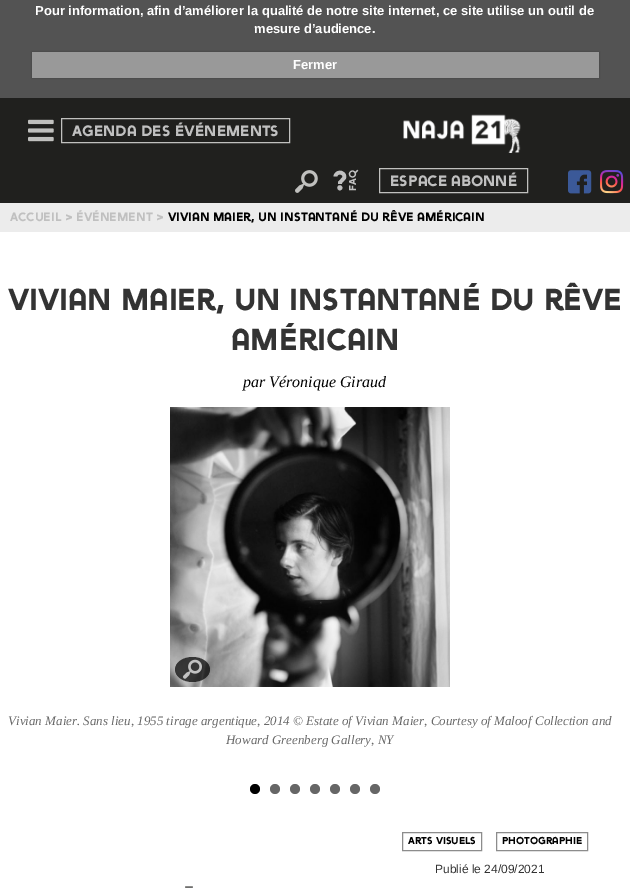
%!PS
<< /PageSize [630 888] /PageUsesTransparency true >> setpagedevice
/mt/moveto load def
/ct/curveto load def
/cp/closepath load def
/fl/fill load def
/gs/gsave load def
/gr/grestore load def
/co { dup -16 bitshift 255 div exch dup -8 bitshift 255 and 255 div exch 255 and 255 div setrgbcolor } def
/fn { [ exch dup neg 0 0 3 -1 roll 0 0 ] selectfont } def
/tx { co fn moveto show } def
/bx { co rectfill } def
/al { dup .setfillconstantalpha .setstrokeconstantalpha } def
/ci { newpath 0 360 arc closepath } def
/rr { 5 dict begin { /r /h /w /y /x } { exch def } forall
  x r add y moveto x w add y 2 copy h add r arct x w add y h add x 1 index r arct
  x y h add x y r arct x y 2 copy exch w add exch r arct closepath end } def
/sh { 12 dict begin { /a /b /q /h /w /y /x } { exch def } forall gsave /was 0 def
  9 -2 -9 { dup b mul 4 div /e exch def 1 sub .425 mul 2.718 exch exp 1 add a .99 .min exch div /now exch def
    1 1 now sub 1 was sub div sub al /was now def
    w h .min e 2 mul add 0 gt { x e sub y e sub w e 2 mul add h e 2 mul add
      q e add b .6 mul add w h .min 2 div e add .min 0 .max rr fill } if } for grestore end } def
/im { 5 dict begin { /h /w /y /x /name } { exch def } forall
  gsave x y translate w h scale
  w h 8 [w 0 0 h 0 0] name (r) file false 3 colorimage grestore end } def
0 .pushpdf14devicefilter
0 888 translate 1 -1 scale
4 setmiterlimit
0 0 630 888 16#FFFFFF bx
0 98 630 105 16#20201E bx
0 0 630 98 16#535353 bx
16#000000 co
32 52 567 26 0 1 .25 sh
32 52 567 26 16#999999 bx
(media/1.raw) 28 119 26 23 im
16#C0C0BE co
61.5 118.5 228 24 rectstroke
(media/2.raw) 403 114 118 39 im
(media/3.raw) 295 170 23 23 im
379.5 168.5 148 24 rectstroke
(media/4.raw) 568 170 24 24 im
(media/5.raw) 600 170 24 24 im
0 203 630 29 16#ECECEC bx
(media/6.raw) 170 407 280 280 im
0.7 al
16#000000 co
192.5 657 mt 202 657 210 662.5 210 669.5 ct 210 676.5 202 682 192.5 682 ct 183 682 175 676.5 175 669.5 ct 175 662.5 183 657 192.5 657 ct cp fl
1 al
(media/7.raw) 183 659 19 20 im
255 789 5 ci fl
16#666666 co
275 789 5 ci fl
295 789 5 ci fl
315 789 5 ci fl
335 789 5 ci fl
355 789 5 ci fl
375 789 5 ci fl
16#8C8C8C co
402.5 832.5 79 18 rectstroke
496.5 832.5 91 18 rectstroke
(media/8.raw) 185 886 8 2 im
(Pour information, afin d’améliorer la qualité de notre site internet, ce site utilise un outil de) 35 15 /LiberationSans-Bold 13 16#FFFFFF tx
(mesure d’audience.) 254 33 /LiberationSans-Bold 13 16#FFFFFF tx
(Fermer) 293 69 /LiberationSans-Bold 13 16#FFFFFF tx
(Agenda des événements) 72 136 /Arya-Regular 15 16#C0C0C0 tx
(?) 332 190 /Arya-Regular 27 16#C0C0C0 tx
/Arya-Regular 10 fn
gs 356 191 translate -90 rotate 0 0 mt (FAQ) show gr
(espace abonné) 390 186 /Arya-Regular 15 16#C0C0C0 tx
(ACCUEIL > Événement >) 10 221 /Arya-Regular 12 16#C0C0C0 tx
(Vivian Maier, un instantané du rêve américain) 168 221 /Arya-Regular 12 16#000000 tx
(Vivian Maier, un instantané du rêve) 8 310 /Arya-Regular 30 16#333333 tx
(américain) 231 350 /Arya-Regular 30 16#333333 tx
(par Véronique Giraud) 243 387 /LiberationSerif-Italic 16 16#000000 tx
(Vivian Maier. Sans lieu, 1955 tirage argentique, 2014 © Estate of Vivian Maier, Courtesy of Maloof Collection and) 8 725 /LiberationSerif-Italic 13 16#696969 tx
(Howard Greenberg Gallery, NY) 226 744 /LiberationSerif-Italic 13 16#696969 tx
(Arts visuels) 408 844 /Arya-Regular 10 16#000000 tx
(Photographie) 502 844 /Arya-Regular 10 16#000000 tx
(Publié le 24/09/2021) 435 873 /LiberationSans-Regular 12 16#333333 tx
.poppdf14devicefilter showpage
